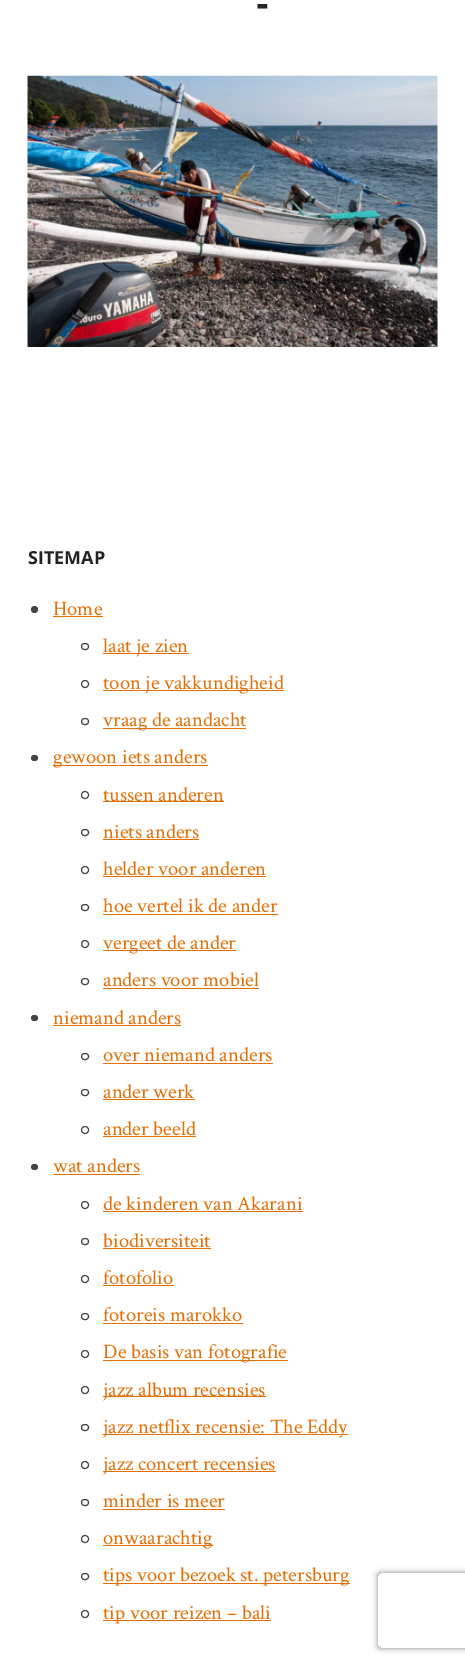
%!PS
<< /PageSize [465 1664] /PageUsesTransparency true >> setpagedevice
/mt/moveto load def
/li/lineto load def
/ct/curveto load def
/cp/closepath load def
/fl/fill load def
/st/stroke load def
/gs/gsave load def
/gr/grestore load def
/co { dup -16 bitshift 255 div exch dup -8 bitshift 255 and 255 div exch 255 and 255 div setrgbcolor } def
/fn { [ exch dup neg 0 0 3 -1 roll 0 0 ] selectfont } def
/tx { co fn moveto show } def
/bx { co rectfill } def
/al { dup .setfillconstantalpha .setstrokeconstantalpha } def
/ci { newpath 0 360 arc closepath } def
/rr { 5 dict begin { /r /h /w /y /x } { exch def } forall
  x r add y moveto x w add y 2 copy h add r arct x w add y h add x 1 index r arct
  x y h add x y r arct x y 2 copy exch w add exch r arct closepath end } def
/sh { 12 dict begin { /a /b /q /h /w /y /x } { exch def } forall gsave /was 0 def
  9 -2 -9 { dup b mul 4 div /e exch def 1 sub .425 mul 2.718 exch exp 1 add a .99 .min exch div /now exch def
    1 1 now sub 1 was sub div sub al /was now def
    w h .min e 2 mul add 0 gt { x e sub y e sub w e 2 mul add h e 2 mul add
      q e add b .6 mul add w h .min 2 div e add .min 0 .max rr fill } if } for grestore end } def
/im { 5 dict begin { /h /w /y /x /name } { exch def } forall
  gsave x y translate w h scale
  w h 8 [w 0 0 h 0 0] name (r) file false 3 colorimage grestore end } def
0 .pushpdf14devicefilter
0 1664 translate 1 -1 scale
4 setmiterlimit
0 0 465 1664 16#FFFFFF bx
(media/1.raw) 27 75 411 272 im
16#444444 co
34.5 609.5 3.5 ci fl
53 616 50 1 16#E36E04 bx
16#444444 co
81.5 643.5 7 6 3 rr st
103 653 86 1 16#E36E04 bx
16#444444 co
85 684 3.5 ci st
103 690 181 1 16#E36E04 bx
16#444444 co
81.5 718.5 7 6 3 rr st
103 728 143 1 16#E36E04 bx
16#444444 co
31 755 7 6 3 rr fl
53 765 155 1 16#E36E04 bx
16#444444 co
85 795 3.5 ci st
103 801 121 1 16#E36E04 bx
16#444444 co
81.5 829.5 7 6 3 rr st
103 839 96 1 16#E36E04 bx
16#444444 co
85 870 3.5 ci st
103 876 163 1 16#E36E04 bx
16#444444 co
81.5 904.5 7 6 3 rr st
103 914 175 1 16#E36E04 bx
16#444444 co
85 944 3.5 ci st
103 950 133 1 16#E36E04 bx
16#444444 co
81.5 978.5 7 6 3 rr st
103 988 156 1 16#E36E04 bx
16#444444 co
31 1015 7 6 3 rr fl
53 1025 128 1 16#E36E04 bx
16#444444 co
81.5 1053.5 7 6 3 rr st
103 1063 170 1 16#E36E04 bx
16#444444 co
81.5 1089.5 7 6 3 rr st
103 1099 92 1 16#E36E04 bx
16#444444 co
85 1130 3.5 ci st
103 1136 93 1 16#E36E04 bx
16#444444 co
31 1164 7 6 3 rr fl
53 1174 87 1 16#E36E04 bx
16#444444 co
85 1205 3.5 ci st
103 1211 200 1 16#E36E04 bx
16#444444 co
81.5 1238.5 7 6 3 rr st
103 1248 108 1 16#E36E04 bx
16#444444 co
85 1279 3.5 ci st
103 1285 71 1 16#E36E04 bx
16#444444 co
81.5 1313.5 7 6 3 rr st
103 1323 140 1 16#E36E04 bx
16#444444 co
85 1354 3.5 ci st
103 1360 185 1 16#E36E04 bx
16#444444 co
85 1390 3.5 ci st
103 1396 163 1 16#E36E04 bx
16#444444 co
81.5 1424.5 7 6 3 rr st
103 1434 245 1 16#E36E04 bx
16#444444 co
85 1465 3.5 ci st
103 1471 173 1 16#E36E04 bx
16#444444 co
81.5 1499.5 7 6 3 rr st
103 1509 122 1 16#E36E04 bx
16#444444 co
85 1539 3.5 ci st
103 1545 110 1 16#E36E04 bx
16#444444 co
81.5 1573.5 7 6 3 rr st
103 1583 247 1 16#E36E04 bx
16#444444 co
85 1614 3.5 ci st
103 1620 168 1 16#E36E04 bx
gs
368 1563 mt 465 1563 li 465 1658 li 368 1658 li cp 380.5 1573 mt 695.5 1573 li 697 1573 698 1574 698 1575.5 ct 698 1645.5 li 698 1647 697 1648 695.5 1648 ct 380.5 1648 li 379 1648 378 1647 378 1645.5 ct 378 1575.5 li 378 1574 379 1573 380.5 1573 ct cp eoclip newpath
16#808080 co
378 1573 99 75 2.5 3 1 sh
gr
(-) 256 16 /LiberationSans-Bold 38 16#222222 tx
(SITEMAP) 28 564 /OpenSans-Bold 18 16#222222 tx
(Home) 53 615 /CrimsonText-Regular 20.6 16#E36E04 tx
(laat je zien) 103 652 /CrimsonText-Regular 20.6 16#E36E04 tx
(toon je vakkundigheid) 103 689 /CrimsonText-Regular 20.6 16#E36E04 tx
(vraag de aandacht) 103 726 /CrimsonText-Regular 20.6 16#E36E04 tx
(gewoon iets anders) 53 763 /CrimsonText-Regular 20.6 16#E36E04 tx
(tussen anderen) 103 801 /CrimsonText-Regular 20.6 16#E36E04 tx
(niets anders) 103 838 /CrimsonText-Regular 20.6 16#E36E04 tx
(helder voor anderen) 103 875 /CrimsonText-Regular 20.6 16#E36E04 tx
(hoe vertel ik de ander) 103 912 /CrimsonText-Regular 20.6 16#E36E04 tx
(vergeet de ander) 103 949 /CrimsonText-Regular 20.6 16#E36E04 tx
(anders voor mobiel) 103 986 /CrimsonText-Regular 20.6 16#E36E04 tx
(niemand anders) 53 1024 /CrimsonText-Regular 20.6 16#E36E04 tx
(over niemand anders) 103 1061 /CrimsonText-Regular 20.6 16#E36E04 tx
(ander werk) 103 1098 /CrimsonText-Regular 20.6 16#E36E04 tx
(ander beeld) 103 1135 /CrimsonText-Regular 20.6 16#E36E04 tx
(wat anders) 53 1172 /CrimsonText-Regular 20.6 16#E36E04 tx
(de kinderen van Akarani) 103 1210 /CrimsonText-Regular 20.6 16#E36E04 tx
(biodiversiteit) 103 1247 /CrimsonText-Regular 20.6 16#E36E04 tx
(fotofolio) 103 1284 /CrimsonText-Regular 20.6 16#E36E04 tx
(fotoreis marokko) 103 1321 /CrimsonText-Regular 20.6 16#E36E04 tx
(De basis van fotografie) 103 1358 /CrimsonText-Regular 20.6 16#E36E04 tx
(jazz album recensies) 103 1396 /CrimsonText-Regular 20.6 16#E36E04 tx
(jazz netflix recensie: The Eddy) 103 1433 /CrimsonText-Regular 20.6 16#E36E04 tx
(jazz concert recensies) 103 1470 /CrimsonText-Regular 20.6 16#E36E04 tx
(minder is meer) 103 1507 /CrimsonText-Regular 20.6 16#E36E04 tx
(onwaarachtig) 103 1544 /CrimsonText-Regular 20.6 16#E36E04 tx
(tips voor bezoek st. petersburg) 103 1581 /CrimsonText-Regular 20.6 16#E36E04 tx
(tip voor reizen – bali) 103 1619 /CrimsonText-Regular 20.6 16#E36E04 tx
.poppdf14devicefilter showpage
